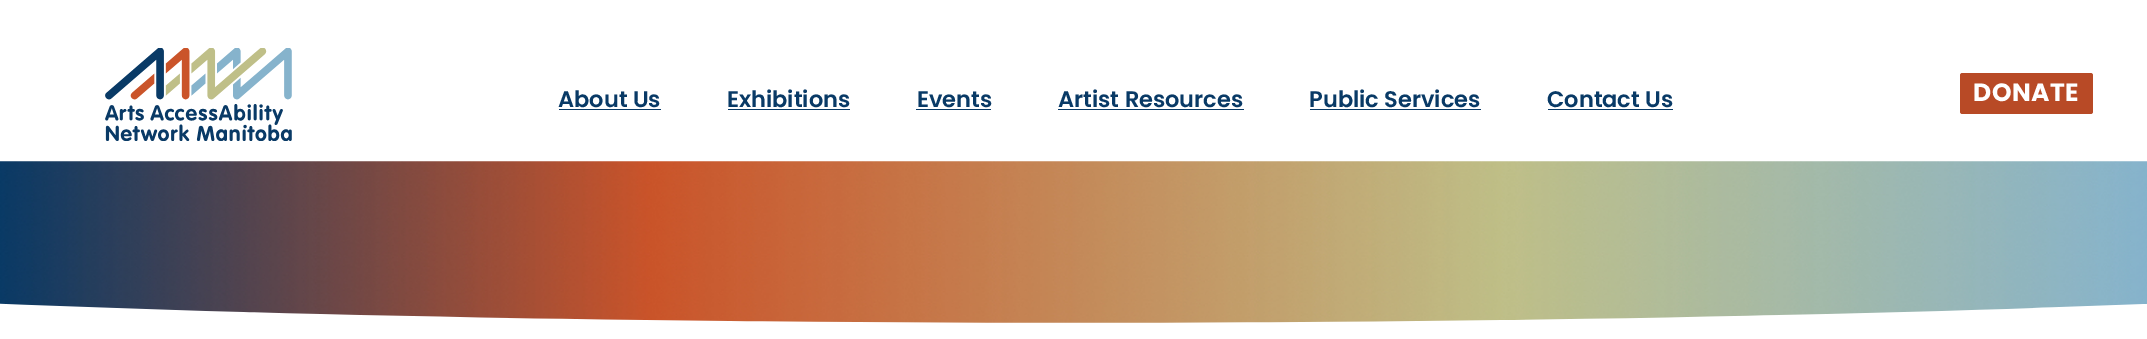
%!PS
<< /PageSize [2147 339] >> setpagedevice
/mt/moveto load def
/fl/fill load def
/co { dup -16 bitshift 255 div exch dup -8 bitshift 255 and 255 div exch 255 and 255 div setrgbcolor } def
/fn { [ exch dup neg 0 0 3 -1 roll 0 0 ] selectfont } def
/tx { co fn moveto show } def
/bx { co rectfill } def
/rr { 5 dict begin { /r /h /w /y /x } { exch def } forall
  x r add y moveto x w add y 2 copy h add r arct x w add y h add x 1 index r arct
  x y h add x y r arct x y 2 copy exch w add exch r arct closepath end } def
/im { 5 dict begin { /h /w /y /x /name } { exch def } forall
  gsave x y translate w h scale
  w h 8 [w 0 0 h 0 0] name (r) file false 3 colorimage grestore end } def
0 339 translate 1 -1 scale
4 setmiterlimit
0 0 2147 339 16#FFFFFF bx
(media/1.raw) 105 48 187 93 im
559 109 102 1 16#093A66 bx
728 109 122 1 16#093A66 bx
916 109 75 1 16#093A66 bx
1058 109 186 1 16#093A66 bx
1310 109 171 1 16#093A66 bx
1548 109 125 1 16#093A66 bx
16#B84A26 co
1960 73 133 41 2.5 rr fl
(media/2.raw) 0 161 2147 162 im
(About Us) 558 107 /Poppins-SemiBold 22.5 16#093A66 tx
(Exhibitions) 727 107 /Poppins-SemiBold 22.5 16#093A66 tx
(Events) 917 107 /Poppins-SemiBold 22.5 16#093A66 tx
(Artist Resources) 1058 107 /Poppins-SemiBold 22.5 16#093A66 tx
(Public Services) 1309 107 /Poppins-SemiBold 22.5 16#093A66 tx
(Contact Us) 1547 107 /Poppins-SemiBold 22.5 16#093A66 tx
/Poppins-Bold 25 fn
16#FFFFFF co
1973 101 mt .5 0 (DONATE) ashow
showpage
